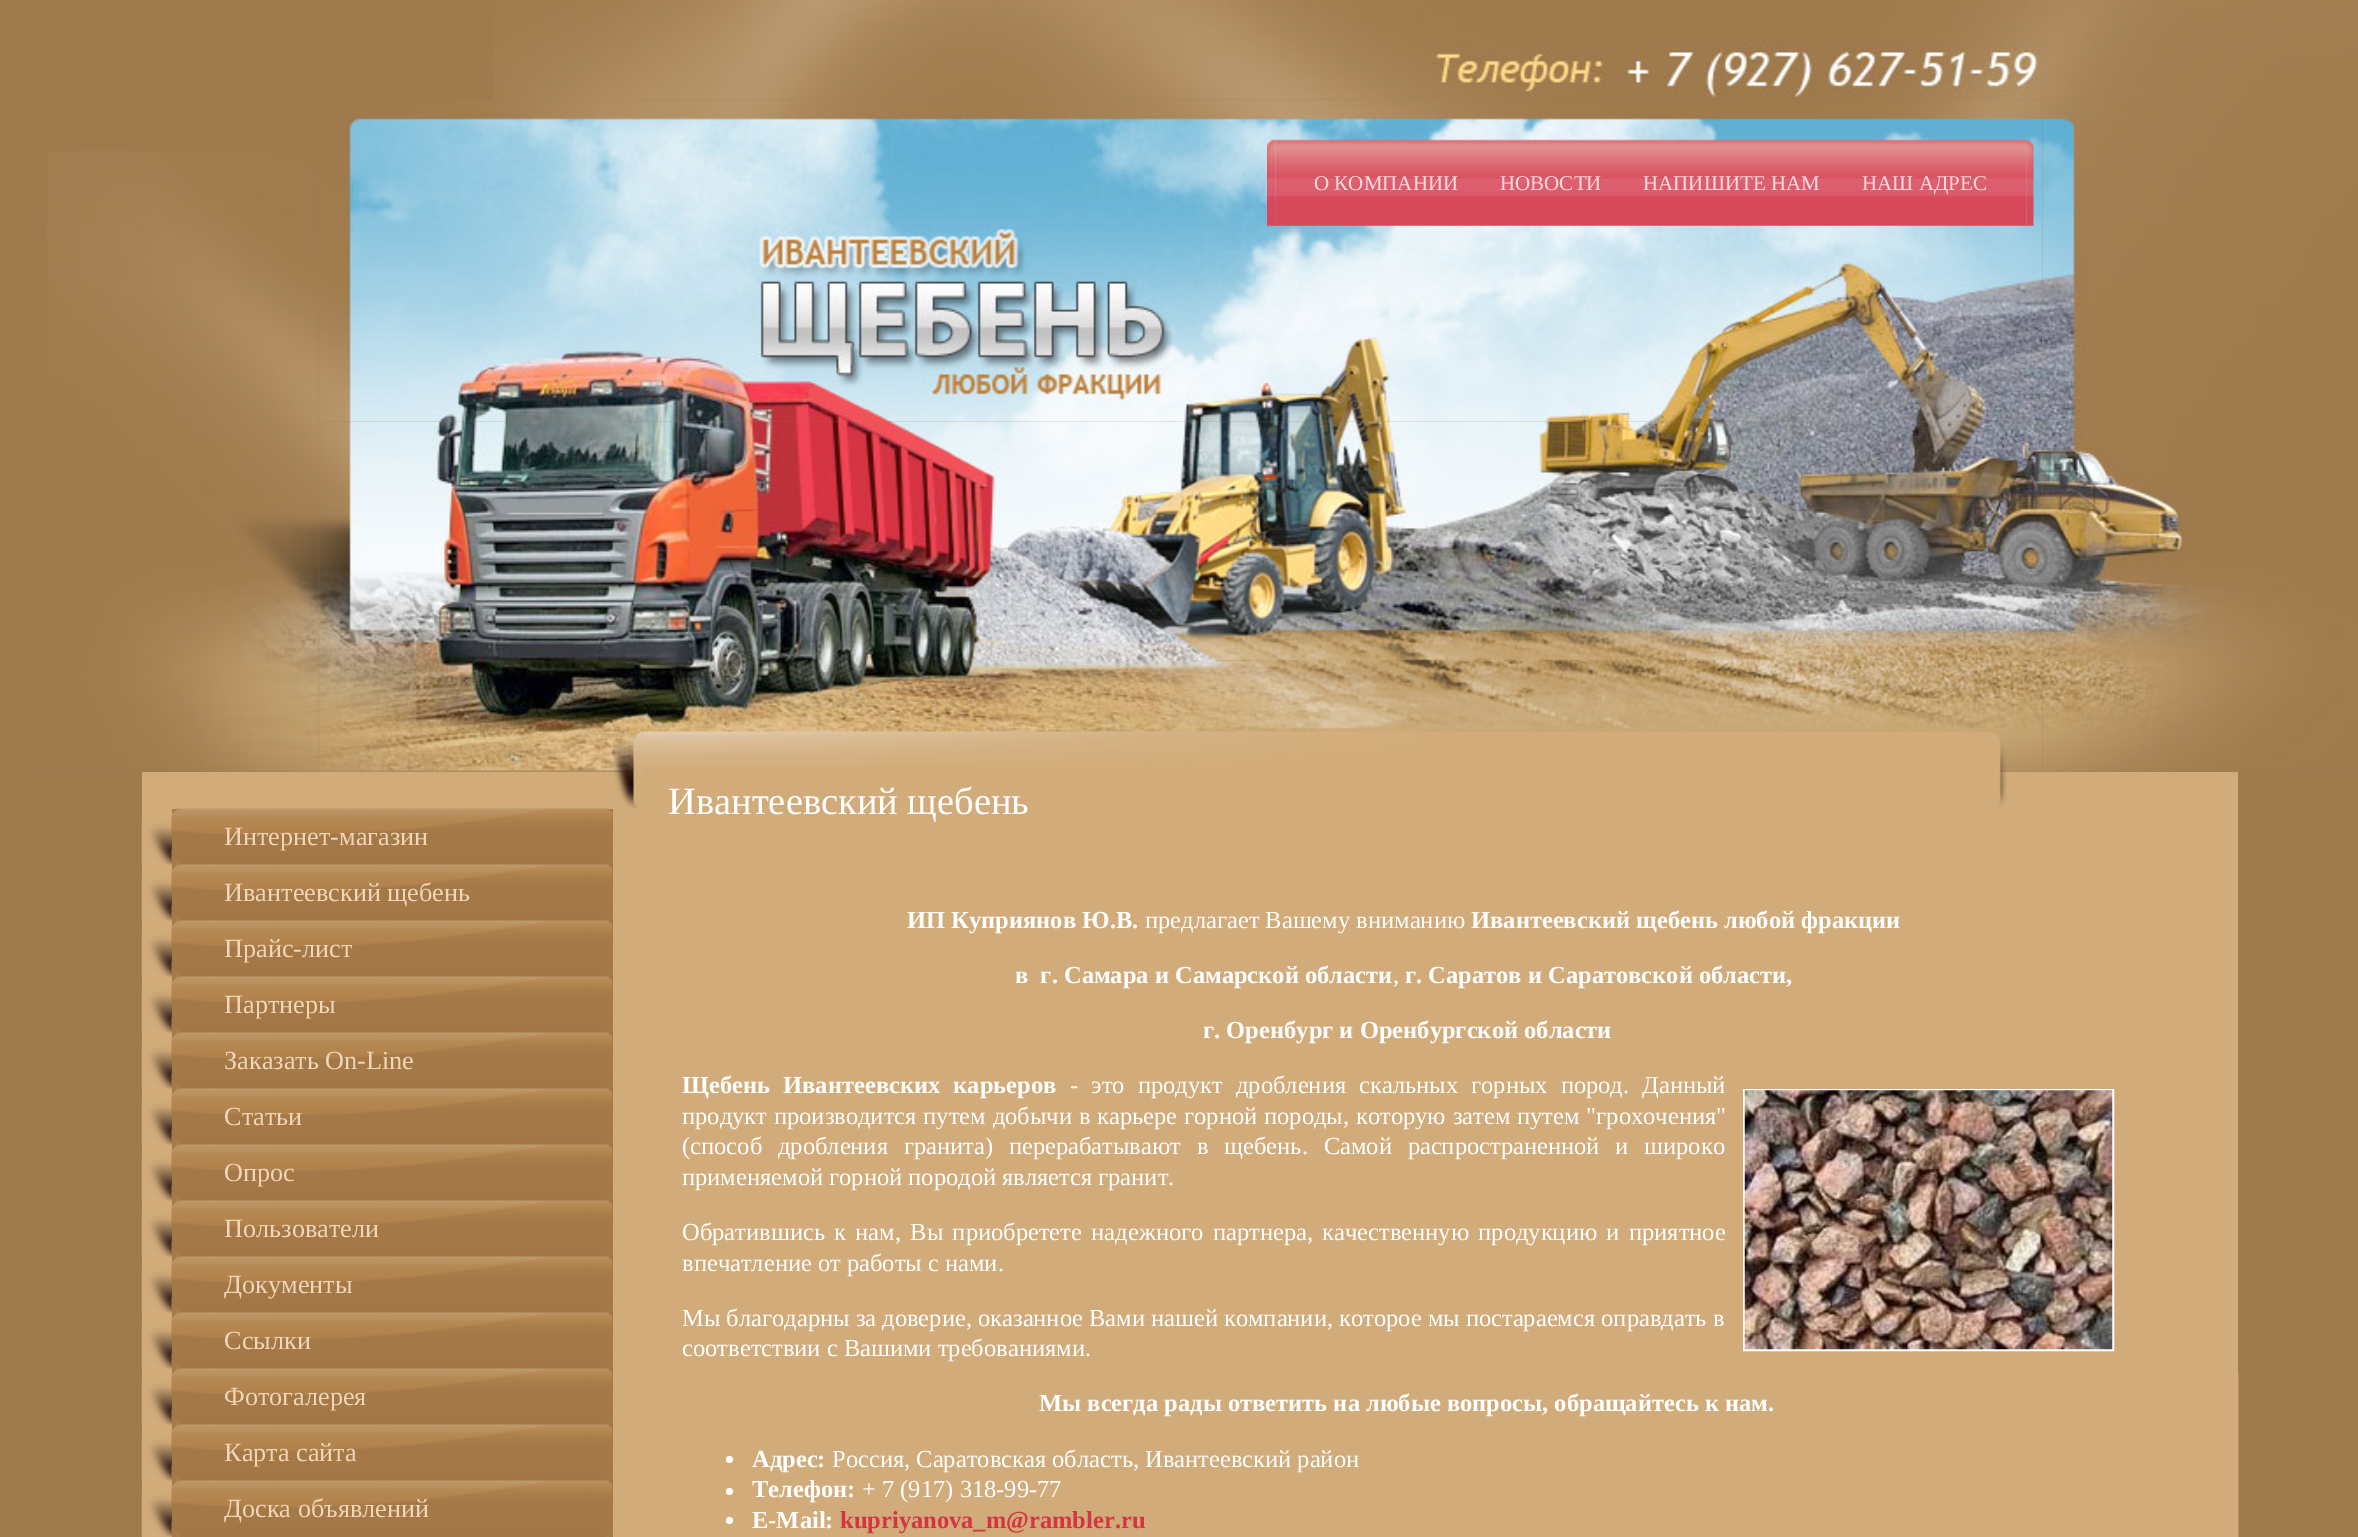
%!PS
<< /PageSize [2358 1537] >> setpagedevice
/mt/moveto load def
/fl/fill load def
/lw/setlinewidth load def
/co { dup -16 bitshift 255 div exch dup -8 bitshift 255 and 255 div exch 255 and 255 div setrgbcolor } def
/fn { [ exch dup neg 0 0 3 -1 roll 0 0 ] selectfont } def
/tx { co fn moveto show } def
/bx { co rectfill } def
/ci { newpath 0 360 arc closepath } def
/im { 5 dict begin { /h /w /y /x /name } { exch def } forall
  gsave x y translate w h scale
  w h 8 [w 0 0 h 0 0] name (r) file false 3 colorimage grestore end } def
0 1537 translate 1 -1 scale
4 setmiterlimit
0 0 2358 1537 16#9F7A4D bx
(media/1.raw) 47 151 272 621 im
(media/2.raw) 493 0 1550 100 im
(media/3.raw) 318 100 1725 322 im
(media/5.raw) 1275 139 752 87 im
(media/4.raw) 1267 139 9 87 im
(media/6.raw) 2026 139 8 87 im
(media/8.raw) 2042 0 316 772 im
(media/7.raw) 318 421 1725 351 im
142 772 2096 765 16#D1AC7A bx
2238 1372 1 165 16#B28C5D bx
(media/9.raw) 141 819 31 46 im
172 809 441 728 16#A47947 bx
(media/10.raw) 171 848 438 17 im
(media/11.raw) 171 808 442 31 im
(media/9.raw) 141 875 31 46 im
(media/10.raw) 171 904 438 17 im
(media/12.raw) 171 864 442 31 im
(media/9.raw) 141 931 31 46 im
(media/10.raw) 171 960 438 17 im
(media/12.raw) 171 920 442 31 im
(media/9.raw) 141 987 31 46 im
(media/10.raw) 171 1016 438 17 im
(media/12.raw) 171 976 442 31 im
(media/9.raw) 141 1043 31 46 im
(media/10.raw) 171 1072 438 17 im
(media/12.raw) 171 1032 442 31 im
(media/9.raw) 141 1099 31 46 im
(media/10.raw) 171 1128 438 17 im
(media/12.raw) 171 1088 442 31 im
(media/9.raw) 141 1155 31 46 im
(media/10.raw) 171 1184 438 17 im
(media/12.raw) 171 1144 442 31 im
(media/9.raw) 141 1211 31 46 im
(media/10.raw) 171 1240 438 17 im
(media/12.raw) 171 1200 442 31 im
(media/9.raw) 141 1267 31 46 im
(media/10.raw) 171 1296 438 17 im
(media/12.raw) 171 1256 442 31 im
(media/9.raw) 141 1323 31 46 im
(media/10.raw) 171 1352 438 17 im
(media/12.raw) 171 1312 442 31 im
(media/9.raw) 141 1379 31 46 im
(media/10.raw) 171 1408 438 17 im
(media/12.raw) 171 1368 442 31 im
(media/9.raw) 141 1435 31 46 im
(media/10.raw) 171 1464 438 17 im
(media/12.raw) 171 1424 442 31 im
(media/9.raw) 141 1491 31 46 im
(media/10.raw) 171 1520 438 17 im
(media/12.raw) 171 1480 442 31 im
(media/13.raw) 612 731 30 78 im
642 732 1343 40 16#D1AC7A bx
(media/14.raw) 642 731 779 36 im
(media/15.raw) 1985 731 22 77 im
16#FFFFFF co
2 lw
1744 1090 369 260 rectstroke
(media/16.raw) 1744 1090 369 260 im
729.5 1459.5 3.5 ci fl
729.5 1491.5 3.5 ci fl
729.5 1520.5 3.5 ci fl
(О КОМПАНИИ) 1314 190 /LiberationSerif-Regular 21 16#FFDBE0 tx
(НОВОСТИ) 1500 190 /LiberationSerif-Regular 21 16#FFDBE0 tx
(НАПИШИТЕ НАМ) 1643 190 /LiberationSerif-Regular 21 16#FFDBE0 tx
(НАШ АДРЕС) 1862 190 /LiberationSerif-Regular 21 16#FFDBE0 tx
(Интернет-магазин) 224 845 /LiberationSerif-Regular 26.25 16#F1D6B7 tx
(Ивантеевский щебень) 224 901 /LiberationSerif-Regular 26.25 16#F1D6B7 tx
(Прайс-лист) 224 957 /LiberationSerif-Regular 26.25 16#F1D6B7 tx
(Партнеры) 224 1013 /LiberationSerif-Regular 26.25 16#F1D6B7 tx
(Заказать On-Line) 224 1069 /LiberationSerif-Regular 26.25 16#F1D6B7 tx
(Статьи) 224 1125 /LiberationSerif-Regular 26.25 16#F1D6B7 tx
(Опрос) 224 1181 /LiberationSerif-Regular 26.25 16#F1D6B7 tx
(Пользователи) 224 1237 /LiberationSerif-Regular 26.25 16#F1D6B7 tx
(Документы) 224 1293 /LiberationSerif-Regular 26.25 16#F1D6B7 tx
(Ссылки) 224 1349 /LiberationSerif-Regular 26.25 16#F1D6B7 tx
(Фотогалерея) 224 1405 /LiberationSerif-Regular 26.25 16#F1D6B7 tx
(Карта сайта) 224 1461 /LiberationSerif-Regular 26.25 16#F1D6B7 tx
(Доска объявлений) 224 1517 /LiberationSerif-Regular 26.25 16#F1D6B7 tx
(Ивантеевский щебень) 668 814 /LiberationSerif-Regular 38.5 16#FFFFFF tx
(ИП Куприянов Ю.В.) 907 928 /LiberationSerif-Bold 24.5 16#FFFFFF tx
(предлагает Вашему вниманию) 1145 928 /LiberationSerif-Regular 24.5 16#FFFFFF tx
(Ивантеевский щебень любой фракции) 1471 928 /LiberationSerif-Bold 24.5 16#FFFFFF tx
(в  г. Самара и Самарской области) 1015 983 /LiberationSerif-Bold 24.5 16#FFFFFF tx
(,) 1393 983 /LiberationSerif-Regular 24.5 16#FFFFFF tx
(г. Саратов и Саратовской области,) 1405 983 /LiberationSerif-Bold 24.5 16#FFFFFF tx
(г. Оренбург и Оренбургской области) 1203 1038 /LiberationSerif-Bold 24.5 16#FFFFFF tx
682 1093 mt 7 0 32 (Щебень Ивантеевских карьеров) widthshow
/LiberationSerif-Regular 24.5 fn
1070 1093 mt 7 0 32 (- это продукт дробления скальных горных пород. Данный) widthshow
682 1124 mt .75 0 32 (продукт производится путем добычи в карьере горной породы, которую затем путем "грохочения") widthshow
682 1154 mt 9.75 0 32 (\(способ дробления гранита\) перерабатывают в щебень. Самой распространенной и широко) widthshow
(применяемой горной породой является гранит.) 682 1185 /LiberationSerif-Regular 24.5 16#FFFFFF tx
682 1240 mt 3.25 0 32 (Обратившись к нам, Вы приобретете надежного партнера, качественную продукцию и приятное) widthshow
(впечатление от работы с нами.) 682 1271 /LiberationSerif-Regular 24.5 16#FFFFFF tx
(Мы благодарны за доверие, оказанное Вами нашей компании, которое мы постараемся оправдать в) 682 1326 /LiberationSerif-Regular 24.5 16#FFFFFF tx
(соответствии с Вашими требованиями.) 682 1356 /LiberationSerif-Regular 24.5 16#FFFFFF tx
(Мы всегда рады ответить на любые вопросы, обращайтесь к нам.) 1039 1411 /LiberationSerif-Bold 24.5 16#FFFFFF tx
(Адрес:) 752 1467 /LiberationSerif-Bold 24.5 16#FFFFFF tx
(Россия, Саратовская область, Ивантеевский район) 832 1467 /LiberationSerif-Regular 24.5 16#FFFFFF tx
(Телефон:) 752 1497 /LiberationSerif-Bold 24.5 16#FFFFFF tx
(+ 7 \(917\) 318-99-77) 862 1497 /LiberationSerif-Regular 24.5 16#FFFFFF tx
(E-Mail:) 752 1528 /LiberationSerif-Bold 24.5 16#FFFFFF tx
(kupriyanova_m@rambler.ru) 840 1528 /LiberationSerif-Bold 24.5 16#D53443 tx
showpage
